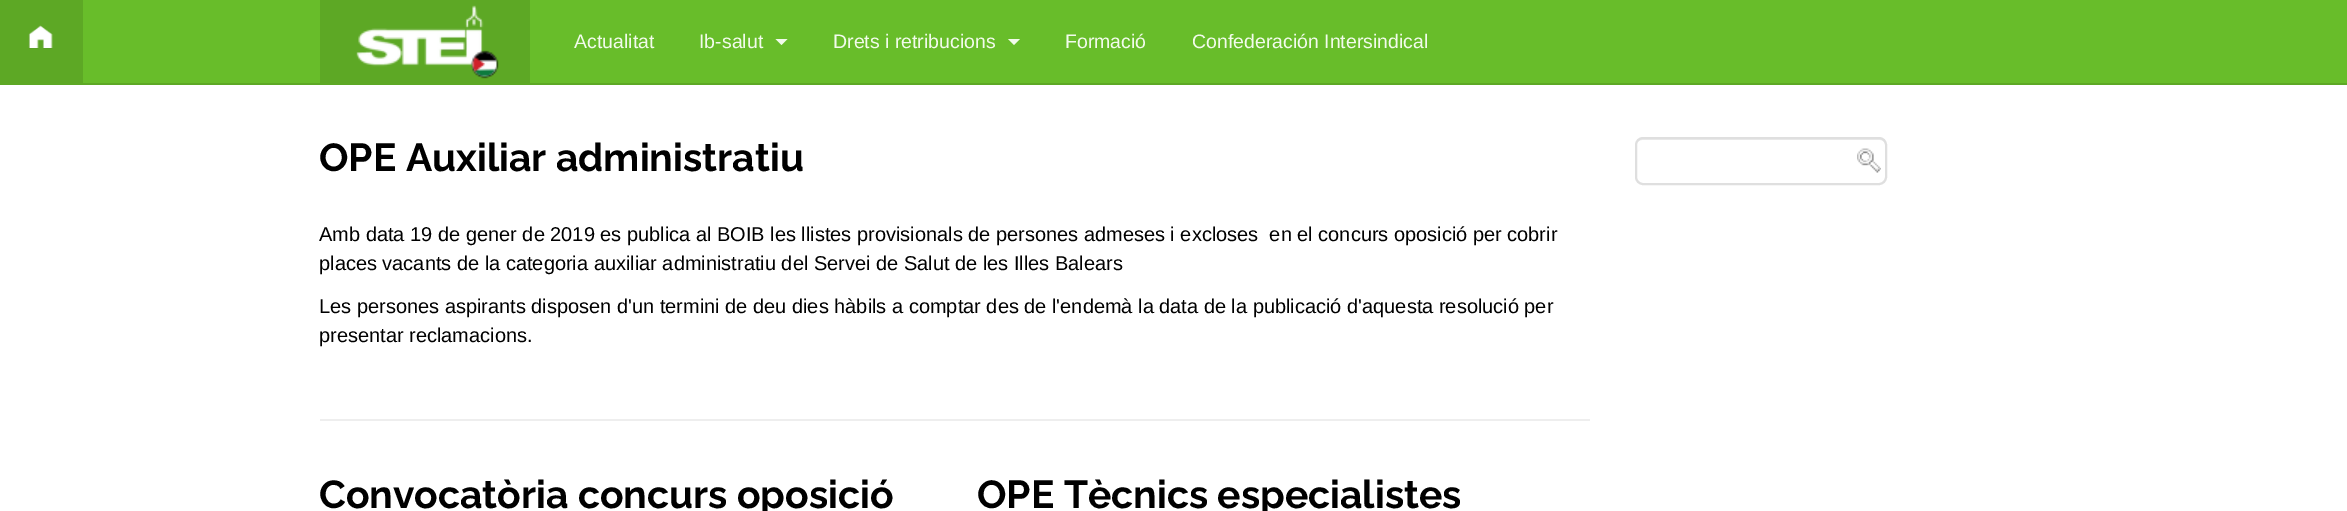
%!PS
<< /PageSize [2347 511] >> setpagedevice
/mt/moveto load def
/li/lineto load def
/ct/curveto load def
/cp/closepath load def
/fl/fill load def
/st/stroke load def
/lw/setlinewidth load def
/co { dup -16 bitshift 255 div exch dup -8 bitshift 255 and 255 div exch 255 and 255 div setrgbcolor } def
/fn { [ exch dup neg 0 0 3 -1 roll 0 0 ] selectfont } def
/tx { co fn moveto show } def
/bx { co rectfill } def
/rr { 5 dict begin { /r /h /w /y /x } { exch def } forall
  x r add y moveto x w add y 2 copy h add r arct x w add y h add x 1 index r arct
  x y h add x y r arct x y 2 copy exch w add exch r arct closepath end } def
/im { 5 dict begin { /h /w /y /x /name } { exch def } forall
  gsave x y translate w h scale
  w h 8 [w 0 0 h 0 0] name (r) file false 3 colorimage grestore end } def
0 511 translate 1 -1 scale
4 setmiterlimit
0 0 2347 511 16#FFFFFF bx
83 0 2264 83 16#68BD2A bx
0 83 2347 2 16#5DA825 bx
0 0 83 83 16#5DA825 bx
(media/1.raw) 28 25 25 24 im
320 0 210 83 16#5DA825 bx
(media/2.raw) 356 5 143 74 im
16#F2FBEB co
775.5 39 mt 787.5 39 li 781.5 45 li cp fl
1008 39 mt 1020 39 li 1014 45 li cp fl
320 419 1270 2 16#EEEEEE bx
(media/3.raw) 1857 148 24 25 im
16#ECECEC co
1642 140 mt 1880 140 li 1883 140 1886 142 1886 146 ct 1886 144 li 1886 141 1883 138 1880 138 ct 1643 138 li 1640 138 1638 140 1637 142 ct 1638 141 1640 140 1642 140 ct cp fl
16#DFDFDF co
2 lw
1636 138 250 46 7 rr st
(Actualitat) 574 48 /LiberationSans-Regular 19.5 16#F2FBEB tx
(Ib-salut) 699 48 /LiberationSans-Regular 19.5 16#F2FBEB tx
(Drets i retribucions) 833 48 /LiberationSans-Regular 19.5 16#F2FBEB tx
(Formació) 1065 48 /LiberationSans-Regular 19.5 16#F2FBEB tx
(Confederación Intersindical) 1192 48 /LiberationSans-Regular 19.5 16#F2FBEB tx
(OPE Auxiliar administratiu) 319 171 /Raleway-Bold 39 16#000000 tx
(Amb data 19 de gener de 2019 es publica al BOIB les llistes provisionals de persones admeses i excloses  en el concurs oposició per cobrir) 319 241 /LiberationSans-Regular 20 16#000000 tx
(places vacants de la categoria auxiliar administratiu del Servei de Salut de les Illes Balears) 319 270 /LiberationSans-Regular 20 16#000000 tx
(Les persones aspirants disposen d'un termini de deu dies hàbils a comptar des de l'endemà la data de la publicació d'aquesta resolució per) 319 313 /LiberationSans-Regular 20 16#000000 tx
(presentar reclamacions.) 319 342 /LiberationSans-Regular 20 16#000000 tx
(Convocatòria concurs oposició) 319 508 /Raleway-Bold 39 16#000000 tx
(OPE Tècnics especialistes) 977 508 /Raleway-Bold 39 16#000000 tx
showpage
